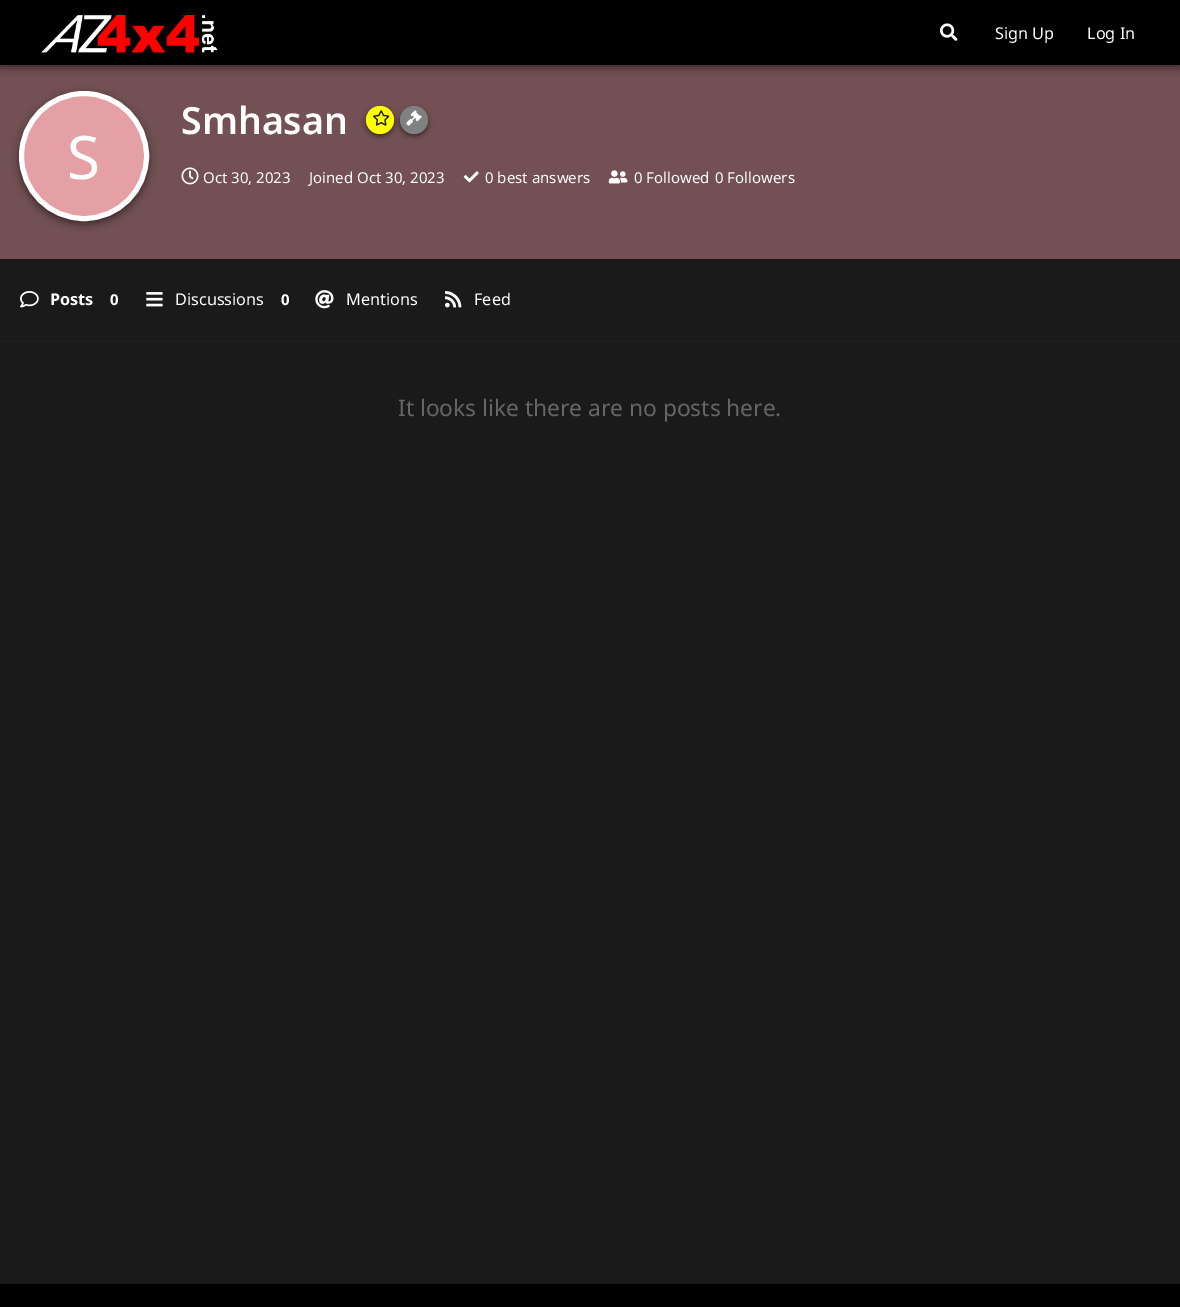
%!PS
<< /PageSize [1180 1307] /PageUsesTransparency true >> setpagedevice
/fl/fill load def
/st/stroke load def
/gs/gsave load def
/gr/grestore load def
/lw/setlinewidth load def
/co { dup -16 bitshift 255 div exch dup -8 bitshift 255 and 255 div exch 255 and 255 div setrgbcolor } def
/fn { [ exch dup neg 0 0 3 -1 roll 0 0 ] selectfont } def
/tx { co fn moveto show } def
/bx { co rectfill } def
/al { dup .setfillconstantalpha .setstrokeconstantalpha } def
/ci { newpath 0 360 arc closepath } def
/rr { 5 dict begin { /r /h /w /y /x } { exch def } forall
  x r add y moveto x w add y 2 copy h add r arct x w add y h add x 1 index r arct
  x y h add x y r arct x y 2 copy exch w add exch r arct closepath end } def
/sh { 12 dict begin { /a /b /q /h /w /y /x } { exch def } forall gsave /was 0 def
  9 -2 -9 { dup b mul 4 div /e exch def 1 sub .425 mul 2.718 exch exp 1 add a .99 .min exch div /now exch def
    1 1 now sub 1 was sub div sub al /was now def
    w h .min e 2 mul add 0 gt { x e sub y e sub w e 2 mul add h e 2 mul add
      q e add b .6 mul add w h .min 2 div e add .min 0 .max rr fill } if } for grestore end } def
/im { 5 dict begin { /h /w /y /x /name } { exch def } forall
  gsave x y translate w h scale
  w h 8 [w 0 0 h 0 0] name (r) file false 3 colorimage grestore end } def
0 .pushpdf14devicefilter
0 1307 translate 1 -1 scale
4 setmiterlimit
0 0 1180 1307 16#1A1A1A bx
0 65 1180 194 16#725053 bx
16#000000 co
0 3 1180 65 0 4 .5 sh
0 0 1180 65 16#000000 bx
(media/1.raw) 41 15 177 38 im
(media/2.raw) 940 23 18 18 im
19 94 130 130 65 4 .5 sh
16#E5A0A6 co
84 156 62.5 ci gs fl gr
16#FFFFFF co
5 lw
st
16#000000 co
366 109 28 27 13.5 2.5 .5 sh
16#FFFF00 co
380 120 14 ci fl
(media/3.raw) 373 110 17 16 im
16#000000 co
400 109 28 27 13.5 2.5 .5 sh
16#808080 co
414 120 14 ci fl
(media/4.raw) 406 110 16 16 im
(media/5.raw) 181 167 18 18 im
(media/6.raw) 463 171 16 12 im
(media/7.raw) 608 170 20 14 im
(media/8.raw) 20 291 19 17 im
(media/9.raw) 146 292 17 15 im
(media/10.raw) 315 290 19 19 im
(media/11.raw) 445 291 17 17 im
0 341 1180 1 16#212121 bx
0 1284 1180 23 16#000000 bx
(Sign Up) 995 39 /NotoSans-Regular 16.25 16#FFFFFF tx
(Log In) 1087 39 /NotoSans-Regular 16.25 16#FFFFFF tx
(Smhasan) 181 134 /NotoSans-SemiBold 37.5 16#FFFFFF tx
(S) 67 179 /NotoSans-Regular 60 16#FFFFFF tx
(Oct 30, 2023) 203 183 /NotoSans-Regular 15 16#FFFFFF tx
(Joined Oct 30, 2023) 309 183 /NotoSans-Regular 15 16#FFFFFF tx
(0 best answers) 485 183 /NotoSans-Regular 15 16#FFFFFF tx
(0 Followed) 634 183 /NotoSans-Regular 15 16#FFFFFF tx
(0 Followers) 715 183 /NotoSans-Regular 15 16#FFFFFF tx
(Posts) 50 305 /NotoSans-Bold 16.25 16#FFFFFF tx
(0) 110 305 /NotoSans-Bold 15 16#FFFFFF tx
(Discussions) 175 305 /NotoSans-Regular 16.25 16#FFFFFF tx
(0) 281 305 /NotoSans-Bold 15 16#FFFFFF tx
(Mentions) 346 305 /NotoSans-Regular 16.25 16#FFFFFF tx
(Feed) 474 305 /NotoSans-Regular 16.25 16#FFFFFF tx
(It looks like there are no posts here.) 398 416 /NotoSans-Regular 22.75 16#666666 tx
.poppdf14devicefilter showpage
